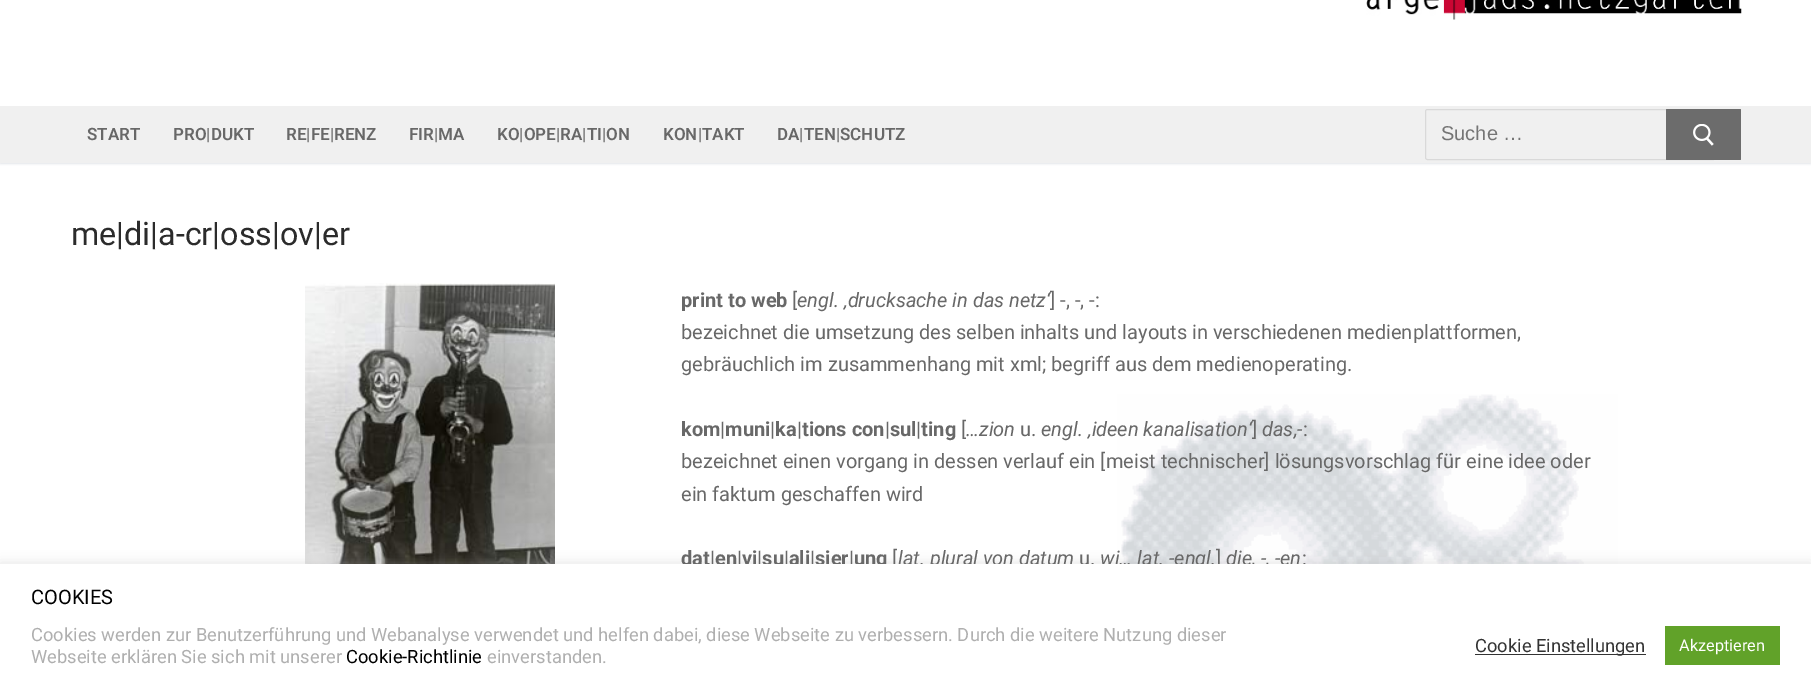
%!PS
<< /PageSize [1811 688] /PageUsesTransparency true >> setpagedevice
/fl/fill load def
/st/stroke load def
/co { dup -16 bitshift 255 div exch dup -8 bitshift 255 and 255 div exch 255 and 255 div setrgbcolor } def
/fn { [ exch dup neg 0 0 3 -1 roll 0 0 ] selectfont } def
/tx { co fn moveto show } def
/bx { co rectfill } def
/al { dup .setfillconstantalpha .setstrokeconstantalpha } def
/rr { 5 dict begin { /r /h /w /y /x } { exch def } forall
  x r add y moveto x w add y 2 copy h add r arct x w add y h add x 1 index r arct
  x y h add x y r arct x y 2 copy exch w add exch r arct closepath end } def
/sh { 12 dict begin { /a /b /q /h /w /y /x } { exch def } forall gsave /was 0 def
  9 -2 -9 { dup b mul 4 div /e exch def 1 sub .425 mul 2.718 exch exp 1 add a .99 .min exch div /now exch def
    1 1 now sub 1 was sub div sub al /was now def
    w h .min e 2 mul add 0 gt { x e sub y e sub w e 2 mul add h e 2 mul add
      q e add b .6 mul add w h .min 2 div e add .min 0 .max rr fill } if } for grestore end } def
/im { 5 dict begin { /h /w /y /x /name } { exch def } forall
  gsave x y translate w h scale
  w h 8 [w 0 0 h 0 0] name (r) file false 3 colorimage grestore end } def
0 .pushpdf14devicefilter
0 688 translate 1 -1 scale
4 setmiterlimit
0 0 1811 688 16#FFFFFF bx
(media/1.raw) 1366 0 376 20 im
16#E1E5EA co
0 108 1811 56 0 1 1 sh
0 106 1811 57 16#F0F0F0 bx
16#D9D9D9 co
1425.5 109.5 290 50 2 rr st
16#6C6C6C co
1666 109 75 51 1 rr fl
(media/2.raw) 1693 124 21 22 im
(media/3.raw) 305 283 250 281 im
(media/4.raw) 1117 394 501 170 im
16#ACABAB co
0 563 1811 125 0 6 .3 sh
(START) 87 140 /Roboto-SemiBold 17 16#686868 tx
(PRO|DUKT) 173 140 /Roboto-SemiBold 17 16#686868 tx
(RE|FE|RENZ) 286 140 /Roboto-SemiBold 17 16#686868 tx
(FIR|MA) 409 140 /Roboto-SemiBold 17 16#686868 tx
(KO|OPE|RA|TI|ON) 497 140 /Roboto-SemiBold 17 16#686868 tx
(KON|TAKT) 663 140 /Roboto-SemiBold 17 16#686868 tx
(DA|TEN|SCHUTZ) 777 140 /Roboto-SemiBold 17 16#686868 tx
(Suche …) 1441 140 /LiberationSans-Regular 20 16#757575 tx
(me|di|a-cr|oss|ov|er) 71 245 /Roboto-Regular 32.25 16#2B2B2B tx
(print to web) 681 307 /Roboto-Bold 20 16#686868 tx
([) 792 307 /Roboto-Regular 20 16#686868 tx
(engl. ‚drucksache in das netz‘) 797 307 /Roboto-Italic 20 16#686868 tx
(] -, -, -:) 1050 307 /Roboto-Regular 20 16#686868 tx
(bezeichnet die umsetzung des selben inhalts und layouts in verschiedenen medienplattformen,) 681 339 /Roboto-Regular 20 16#686868 tx
(gebräuchlich im zusammenhang mit xml; begriff aus dem medienoperating.) 681 371 /Roboto-Regular 20 16#686868 tx
([) 961 436 /Roboto-Regular 20 16#686868 tx
(kom|muni|ka|tions con|sul|ting) 681 436 /Roboto-Bold 20 16#686868 tx
(…zion) 966 436 /Roboto-Italic 20 16#686868 tx
(u.) 1020 436 /Roboto-Regular 20 16#686868 tx
(engl. ‚ideen kanalisation‘) 1041 436 /Roboto-Italic 20 16#686868 tx
(]) 1252 436 /Roboto-Regular 20 16#686868 tx
(das,-) 1262 436 /Roboto-Italic 20 16#686868 tx
(:) 1303 436 /Roboto-Regular 20 16#686868 tx
(bezeichnet einen vorgang in dessen verlauf ein [meist technischer] lösungsvorschlag für eine idee oder) 681 468 /Roboto-Regular 20 16#686868 tx
(ein faktum geschaffen wird) 681 501 /Roboto-Regular 20 16#686868 tx
(dat|en|vi|su|ali|sier|ung) 681 565 /Roboto-Bold 20 16#686868 tx
([) 892 565 /Roboto-Regular 20 16#686868 tx
(lat. plural von datum) 898 565 /Roboto-Italic 20 16#686868 tx
(u.) 1079 565 /Roboto-Regular 20 16#686868 tx
(wi… lat. -engl.) 1100 565 /Roboto-Italic 20 16#686868 tx
(]) 1216 565 /Roboto-Regular 20 16#686868 tx
(die, -, -en) 1226 565 /Roboto-Italic 20 16#686868 tx
(:) 1302 565 /Roboto-Regular 20 16#686868 tx
0 564 1811 124 16#FFFFFF bx
(COOKIES) 31 604 /Roboto-Regular 20 16#000000 tx
(Cookies werden zur Benutzerführung und Webanalyse verwendet und helfen dabei, diese Webseite zu verbessern. Durch die weitere Nutzung dieser) 31 641 /Roboto-Regular 18.33 16#AFAFAF tx
(Webseite erklären Sie sich mit unserer) 31 663 /Roboto-Regular 18.33 16#AFAFAF tx
(Cookie-Richtlinie) 346 663 /Roboto-Regular 18.33 16#000000 tx
(einverstanden.) 487 663 /Roboto-Regular 18.33 16#AFAFAF tx
1475 654 171 1 16#333333 bx
(Cookie Einstellungen) 1475 652 /Roboto-Regular 18.33 16#333333 tx
1665 626 115 39 16#61A229 bx
(Akzeptieren) 1679 651 /Roboto-Regular 16.25 16#FFFFFF tx
.poppdf14devicefilter showpage
